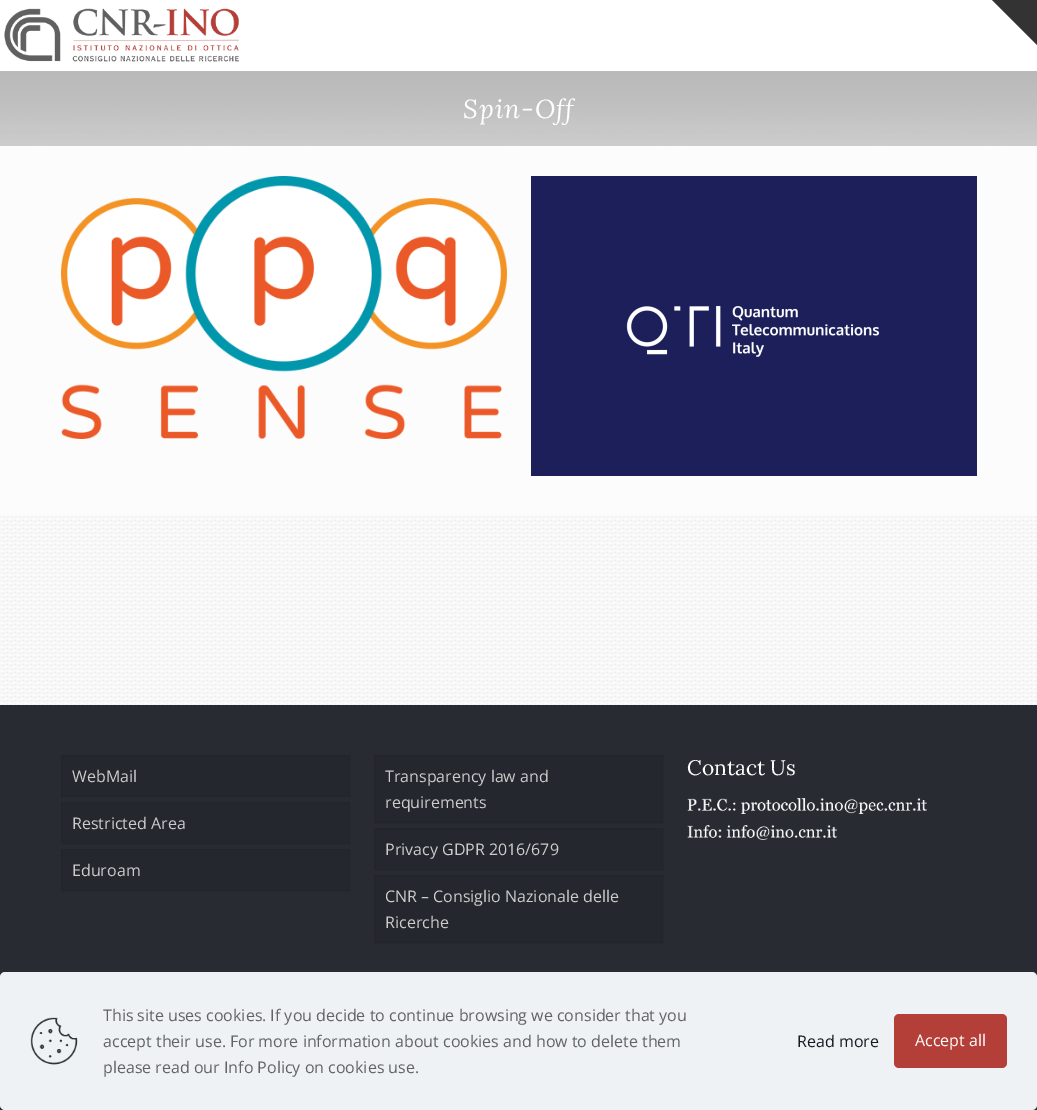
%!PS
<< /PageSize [1037 1110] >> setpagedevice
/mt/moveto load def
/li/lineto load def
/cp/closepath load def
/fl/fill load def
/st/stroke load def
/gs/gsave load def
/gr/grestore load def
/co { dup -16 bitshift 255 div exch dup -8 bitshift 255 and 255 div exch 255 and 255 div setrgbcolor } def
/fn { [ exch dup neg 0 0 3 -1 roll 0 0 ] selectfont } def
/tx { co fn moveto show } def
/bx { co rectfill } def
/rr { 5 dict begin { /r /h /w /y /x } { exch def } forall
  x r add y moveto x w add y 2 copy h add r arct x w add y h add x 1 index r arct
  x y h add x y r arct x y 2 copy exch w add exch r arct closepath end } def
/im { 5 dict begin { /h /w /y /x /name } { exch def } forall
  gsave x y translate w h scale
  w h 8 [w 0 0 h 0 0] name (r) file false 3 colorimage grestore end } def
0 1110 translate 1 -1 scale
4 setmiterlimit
0 0 1037 1110 16#FFFFFF bx
(media/1.raw) 0 516 1037 189 im
16#333333 co
1037 0 mt 1037 45 li 992 0 li cp fl
0 146 1037 370 16#FCFCFC bx
(media/2.raw) 4 8 235 54 im
(media/3.raw) 0 71 1037 75 im
(media/4.raw) 61 176 446 263 im
531 176 446 300 16#1C1F59 bx
(media/5.raw) 626 305 254 52 im
0 705 1037 405 16#292B33 bx
16#25272E co
61.5 755.5 mt 349.5 755.5 li 349.5 796.5 li 61.5 796.5 li cp gs fl gr
16#24252C co
st
16#25272E co
61.5 802.5 mt 349.5 802.5 li 349.5 843.5 li 61.5 843.5 li cp gs fl gr
16#24252C co
st
16#25272E co
61.5 849.5 mt 349.5 849.5 li 349.5 890.5 li 61.5 890.5 li cp gs fl gr
16#24252C co
st
16#25272E co
374.5 755.5 mt 662.5 755.5 li 662.5 822.5 li 374.5 822.5 li cp gs fl gr
16#24252C co
st
16#25272E co
374.5 828.5 mt 662.5 828.5 li 662.5 869.5 li 374.5 869.5 li cp gs fl gr
16#24252C co
st
16#25272E co
374.5 875.5 mt 662.5 875.5 li 662.5 942.5 li 374.5 942.5 li cp gs fl gr
16#24252C co
st
(media/6.raw) 687 798 240 16 im
(media/7.raw) 687 825 150 15 im
16#EEF2F5 co
0 972 1037 138 5 rr fl
(media/8.raw) 30 1017 48 48 im
16#B43F38 co
894 1014 113 54 5 rr fl
/Lora-Italic 26 fn
16#FFFFFF co
463 118 mt 1 0 (Spin-Off) ashow
(WebMail) 72 782 /OpenSans-Regular 16 16#CCCCCC tx
(Restricted Area) 72 829 /OpenSans-Regular 16 16#CCCCCC tx
(Eduroam) 72 876 /OpenSans-Regular 16 16#CCCCCC tx
(Transparency law and) 385 782 /OpenSans-Regular 16 16#CCCCCC tx
(requirements) 385 808 /OpenSans-Regular 16 16#CCCCCC tx
(Privacy GDPR 2016/679) 385 855 /OpenSans-Regular 16 16#CCCCCC tx
(CNR – Consiglio Nazionale delle) 385 902 /OpenSans-Regular 16 16#CCCCCC tx
(Ricerche) 385 928 /OpenSans-Regular 16 16#CCCCCC tx
(Contact Us) 687 775 /Lora-Regular 21 16#FFFFFF tx
(This site uses cookies. If you decide to continue browsing we consider that you) 103 1021 /OpenSans-Regular 16 16#626262 tx
(accept their use. For more information about cookies and how to delete them) 103 1047 /OpenSans-Regular 16 16#626262 tx
(please read our Info Policy on cookies use.) 103 1073 /OpenSans-Regular 16 16#626262 tx
(Read more) 797 1047 /OpenSans-Regular 16 16#161922 tx
(Accept all) 915 1046 /OpenSans-Regular 16 16#FFFFFF tx
showpage
